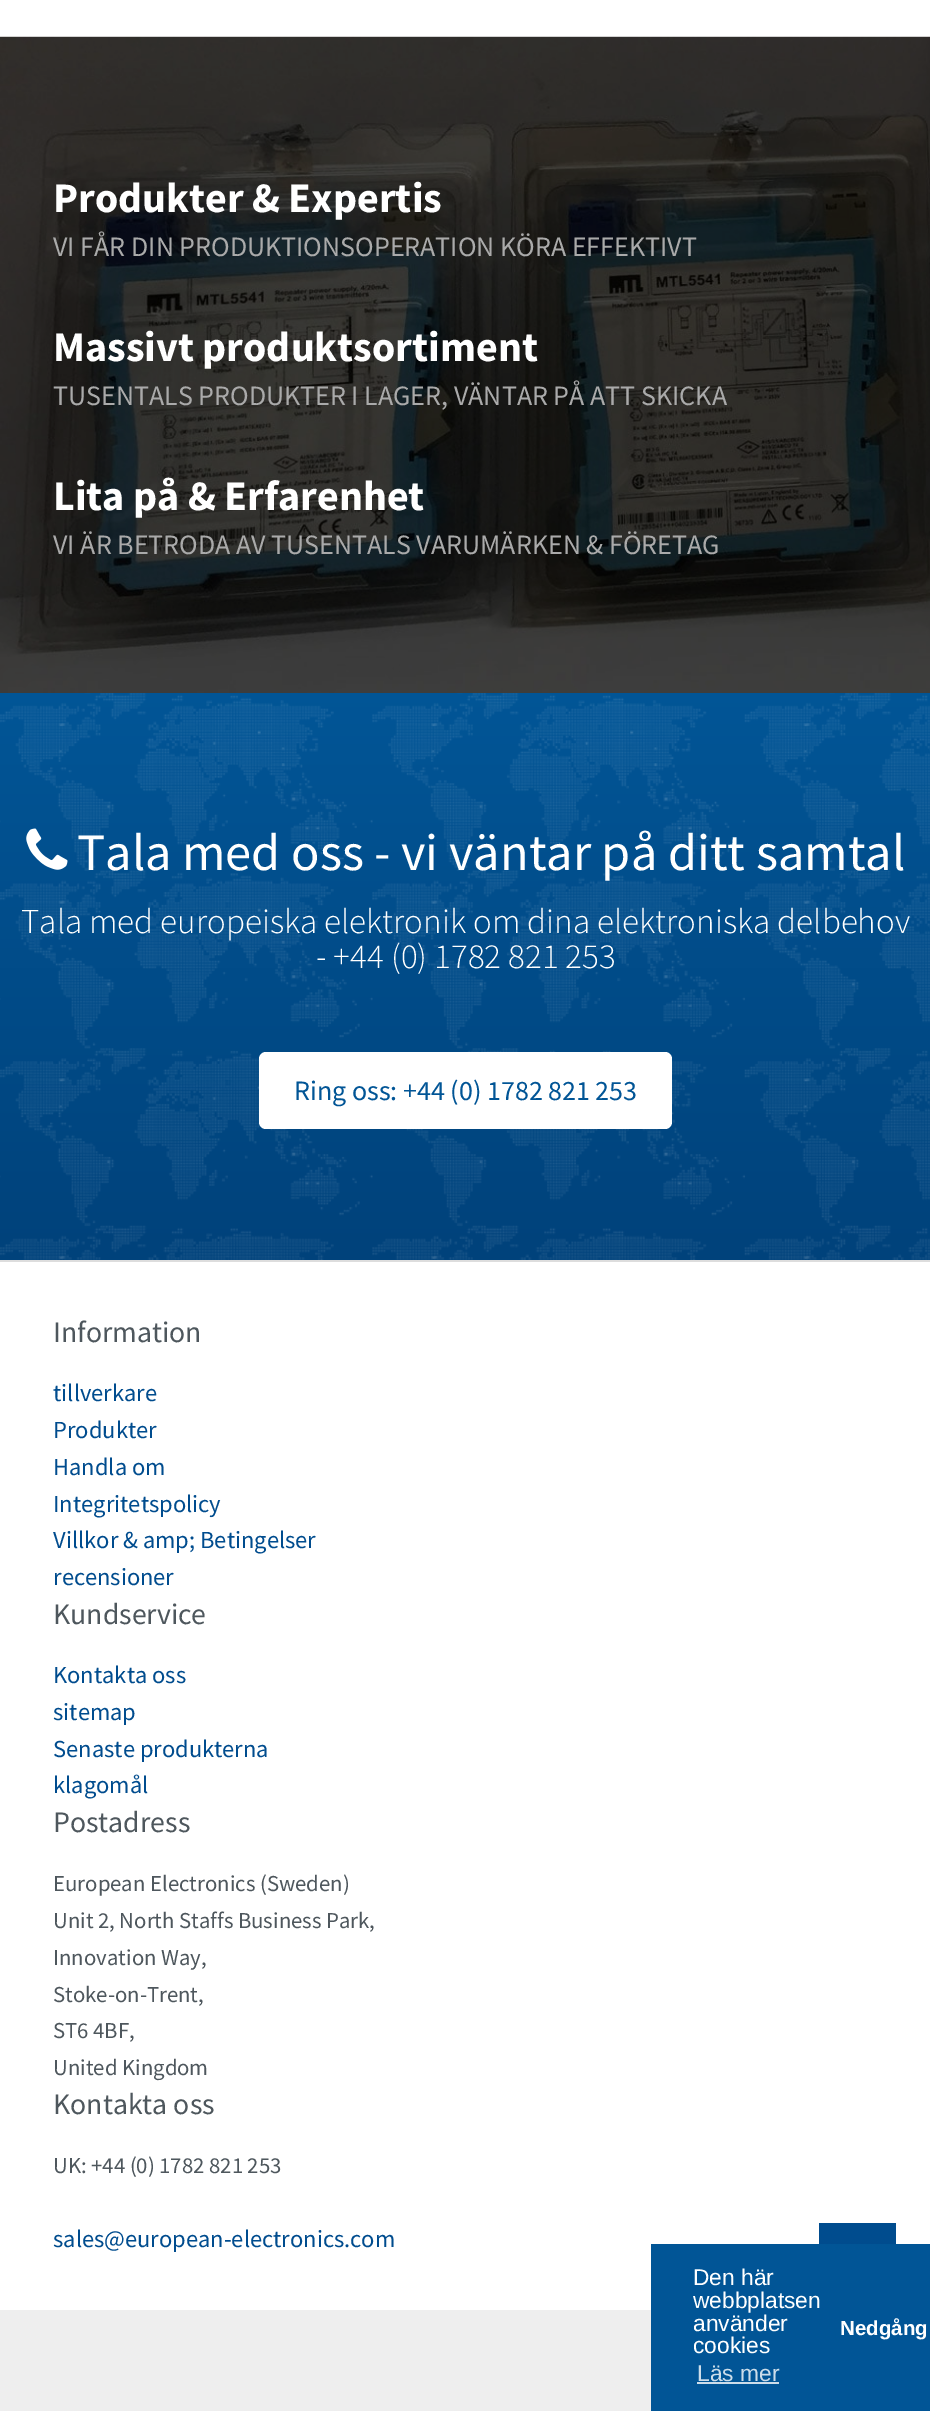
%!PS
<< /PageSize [930 2411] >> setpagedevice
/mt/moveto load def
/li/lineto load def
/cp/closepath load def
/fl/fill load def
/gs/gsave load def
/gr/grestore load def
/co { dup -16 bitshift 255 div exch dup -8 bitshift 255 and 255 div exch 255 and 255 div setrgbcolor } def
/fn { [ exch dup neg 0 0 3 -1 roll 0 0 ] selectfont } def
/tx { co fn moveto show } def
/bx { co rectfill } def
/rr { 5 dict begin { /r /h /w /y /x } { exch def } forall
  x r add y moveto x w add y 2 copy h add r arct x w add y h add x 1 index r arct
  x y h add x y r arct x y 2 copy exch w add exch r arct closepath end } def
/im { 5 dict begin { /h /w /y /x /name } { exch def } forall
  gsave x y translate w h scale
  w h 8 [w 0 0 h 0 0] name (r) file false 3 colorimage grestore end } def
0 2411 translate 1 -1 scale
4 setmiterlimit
0 0 930 2411 16#EEEEEE bx
0 0 930 37 16#FFFFFF bx
(media/1.raw) 0 36 930 657 im
gs 0 693 mt 930 693 li 930 1260 li 0 1260 li cp clip newpath
<< /ShadingType 2 /ColorSpace /DeviceRGB /Coords [466 693 466 1260] /Extend [true true] /Function << /FunctionType 3 /Domain [0 1] /Functions [<< /FunctionType 2 /Domain [0 1] /C0 [.004 .333 .588] /C1 [0 .259 .482] /N 1 >> << /FunctionType 2 /Domain [0 1] /C0 [0 .259 .482] /C1 [0 .259 .482] /N 1 >>] /Bounds [.97] /Encode [0 1 0 1] >> >> shfill gr
(media/2.raw) 0 693 930 567 im
(media/3.raw) 26 828 42 42 im
259 1052 413 77 7 rr fl
0 1262 930 1048 16#FFFFFF bx
0 1260 930 2 16#DDDDDD bx
819 2223 77 21 16#004C8E bx
651 2244 279 167 16#015596 bx
697 2382 82 2 16#CCDDEA bx
(Produkter & Expertis) 53 212 /SourceSansPro-Bold 42 16#FFFFFF tx
(VI FÅR DIN PRODUKTIONSOPERATION KÖRA EFFEKTIVT) 53 256 /SourceSansPro-Regular 28 16#AAAAAA tx
(Massivt produktsortiment) 53 361 /SourceSansPro-Bold 42 16#FFFFFF tx
(TUSENTALS PRODUKTER I LAGER, VÄNTAR PÅ ATT SKICKA) 53 405 /SourceSansPro-Regular 28 16#AAAAAA tx
(Lita på & Erfarenhet) 53 510 /SourceSansPro-Bold 42 16#FFFFFF tx
(VI ÄR BETRODA AV TUSENTALS VARUMÄRKEN & FÖRETAG) 53 554 /SourceSansPro-Regular 28 16#AAAAAA tx
(Tala med oss - vi väntar på ditt samtal) 77 870 /SourceSansPro-Regular 52.5 16#FFFFFF tx
(Tala med europeiska elektronik om dina elektroniska delbehov) 21 933 /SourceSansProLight-Light 35 16#FFFFFF tx
(- +44 \(0\) 1782 821 253) 316 968 /SourceSansProLight-Light 35 16#FFFFFF tx
(Ring oss: +44 \(0\) 1782 821 253) 294 1100 /SourceSansPro-Regular 28 16#015596 tx
(Information) 53 1342 /SourceSansPro-Regular 29.75 16#4E575D tx
(tillverkare) 53 1401 /SourceSansPro-Regular 24.5 16#004C8E tx
(Produkter) 53 1438 /SourceSansPro-Regular 24.5 16#004C8E tx
(Handla om) 53 1475 /SourceSansPro-Regular 24.5 16#004C8E tx
(Integritetspolicy) 53 1512 /SourceSansPro-Regular 24.5 16#004C8E tx
(Villkor & amp; Betingelser) 53 1548 /SourceSansPro-Regular 24.5 16#004C8E tx
(recensioner) 53 1585 /SourceSansPro-Regular 24.5 16#004C8E tx
(Kundservice) 53 1624 /SourceSansPro-Regular 29.75 16#4E575D tx
(Kontakta oss) 53 1683 /SourceSansPro-Regular 24.5 16#004C8E tx
(sitemap) 53 1720 /SourceSansPro-Regular 24.5 16#004C8E tx
(Senaste produkterna) 53 1757 /SourceSansPro-Regular 24.5 16#004C8E tx
(klagomål) 53 1793 /SourceSansPro-Regular 24.5 16#004C8E tx
(Postadress) 53 1832 /SourceSansPro-Regular 29.75 16#4E575D tx
(European Electronics \(Sweden\)) 53 1891 /SourceSansPro-Regular 22.75 16#4E575D tx
(Unit 2, North Staffs Business Park,) 53 1928 /SourceSansPro-Regular 22.75 16#4E575D tx
(Innovation Way,) 53 1965 /SourceSansPro-Regular 22.75 16#4E575D tx
(Stoke-on-Trent,) 53 2002 /SourceSansPro-Regular 22.75 16#4E575D tx
(ST6 4BF,) 53 2038 /SourceSansPro-Regular 22.75 16#4E575D tx
(United Kingdom) 53 2075 /SourceSansPro-Regular 22.75 16#4E575D tx
(Kontakta oss) 53 2114 /SourceSansPro-Regular 29.75 16#4E575D tx
(UK: +44 \(0\) 1782 821 253) 53 2173 /SourceSansPro-Regular 22.75 16#4E575D tx
(sales@european-electronics.com) 53 2247 /SourceSansPro-Regular 24.5 16#004C8E tx
(Den här) 693 2285 /LiberationSans-Regular 22.75 16#FFFFFF tx
(webbplatsen) 693 2308 /LiberationSans-Regular 22.75 16#FFFFFF tx
(använder) 693 2331 /LiberationSans-Regular 22.75 16#FFFFFF tx
(cookies) 693 2353 /LiberationSans-Regular 22.75 16#FFFFFF tx
(Läs mer) 697 2381 /LiberationSans-Regular 22.75 16#CCDDEA tx
(Nedgång) 840 2335 /LiberationSans-Bold 20.5 16#FFFFFF tx
showpage
